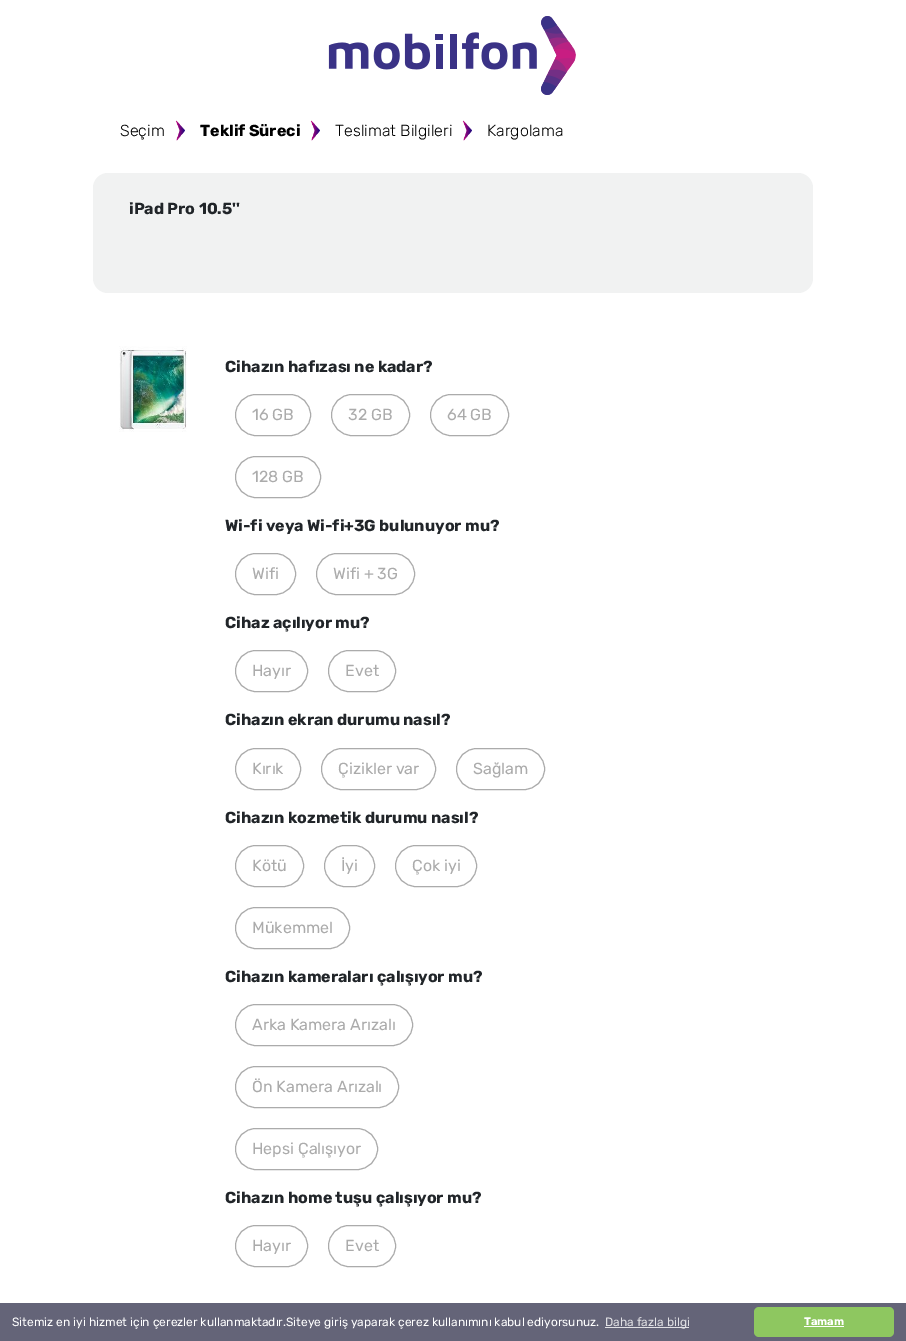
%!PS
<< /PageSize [906 1341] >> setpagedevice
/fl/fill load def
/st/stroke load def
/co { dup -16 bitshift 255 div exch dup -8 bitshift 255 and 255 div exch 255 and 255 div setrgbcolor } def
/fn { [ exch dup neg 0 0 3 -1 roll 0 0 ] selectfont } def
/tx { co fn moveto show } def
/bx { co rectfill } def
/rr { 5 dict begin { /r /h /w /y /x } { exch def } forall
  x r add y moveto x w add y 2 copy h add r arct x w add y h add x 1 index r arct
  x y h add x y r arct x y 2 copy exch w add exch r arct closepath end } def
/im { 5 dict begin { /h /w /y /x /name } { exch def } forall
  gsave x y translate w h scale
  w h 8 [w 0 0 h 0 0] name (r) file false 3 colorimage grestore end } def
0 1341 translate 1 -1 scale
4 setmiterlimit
0 0 906 1341 16#FFFFFF bx
(media/1.raw) 328 16 248 79 im
(media/2.raw) 175 120 10 21 im
(media/3.raw) 310 120 10 21 im
(media/2.raw) 462 120 10 21 im
16#F1F2F2 co
93 173 720 120 15 rr fl
(media/4.raw) 119 346 68 86 im
16#ABABAB co
235.5 394.5 75 41 20.5 rr st
331.5 394.5 78 41 20.5 rr st
430.5 394.5 78 41 20.5 rr st
235.5 456.5 85 41 20.5 rr st
235.5 553.5 60 41 20.5 rr st
316.5 553.5 98 41 20.5 rr st
235.5 650.5 72 41 20.5 rr st
328.5 650.5 67 41 20.5 rr st
235.5 748.5 65 41 20.5 rr st
321.5 748.5 114 41 20.5 rr st
456.5 748.5 88 41 20.5 rr st
235.5 845.5 68 41 20.5 rr st
324.5 845.5 50 41 20.5 rr st
395.5 845.5 81 41 20.5 rr st
235.5 907.5 114 41 20.5 rr st
235.5 1004.5 177 41 20.5 rr st
235.5 1066.5 163 41 20.5 rr st
235.5 1128.5 142 41 20.5 rr st
235.5 1225.5 72 41 20.5 rr st
328.5 1225.5 67 41 20.5 rr st
0 1303 906 38 16#646478 bx
605 1327 84 1 16#E0E0E4 bx
16#8EC760 co
754 1307 140 30 5 rr fl
804 1326 40 1 16#FFFFFF bx
(Seçim) 120 136 /Rubik-Light 16 16#000000 tx
(Teklif Süreci) 200 136 /Rubik-Bold 16 16#000000 tx
(Teslimat Bilgileri) 335 136 /Rubik-Light 16 16#000000 tx
(Kargolama) 487 136 /Rubik-Light 16 16#000000 tx
(iPad Pro 10.5'') 129 214 /Rubik-Bold 16 16#212529 tx
(Cihazın hafızası ne kadar?) 225 372 /Rubik-Bold 16 16#212529 tx
(16 GB) 252 420 /Rubik-Regular 16 16#ABABAB tx
(32 GB) 348 420 /Rubik-Regular 16 16#ABABAB tx
(64 GB) 447 420 /Rubik-Regular 16 16#ABABAB tx
(128 GB) 252 482 /Rubik-Regular 16 16#ABABAB tx
(Wi-fi veya Wi-fi+3G bulunuyor mu?) 225 531 /Rubik-Bold 16 16#212529 tx
(Wifi) 252 579 /Rubik-Regular 16 16#ABABAB tx
(Wifi + 3G) 333 579 /Rubik-Regular 16 16#ABABAB tx
(Cihaz açılıyor mu?) 225 628 /Rubik-Bold 16 16#212529 tx
(Hayır) 252 676 /Rubik-Regular 16 16#ABABAB tx
(Evet) 345 676 /Rubik-Regular 16 16#ABABAB tx
(Cihazın ekran durumu nasıl?) 225 725 /Rubik-Bold 16 16#212529 tx
(Kırık) 252 774 /Rubik-Regular 16 16#ABABAB tx
(Çizikler var) 338 774 /Rubik-Regular 16 16#ABABAB tx
(Sağlam) 473 774 /Rubik-Regular 16 16#ABABAB tx
(Cihazın kozmetik durumu nasıl?) 225 823 /Rubik-Bold 16 16#212529 tx
(Kötü) 252 871 /Rubik-Regular 16 16#ABABAB tx
(İyi) 341 871 /Rubik-Regular 16 16#ABABAB tx
(Çok iyi) 412 871 /Rubik-Regular 16 16#ABABAB tx
(Mükemmel) 252 933 /Rubik-Regular 16 16#ABABAB tx
(Cihazın kameraları çalışıyor mu?) 225 982 /Rubik-Bold 16 16#212529 tx
(Arka Kamera Arızalı) 252 1030 /Rubik-Regular 16 16#ABABAB tx
(Ön Kamera Arızalı) 252 1092 /Rubik-Regular 16 16#ABABAB tx
(Hepsi Çalışıyor) 252 1154 /Rubik-Regular 16 16#ABABAB tx
(Cihazın home tuşu çalışıyor mu?) 225 1203 /Rubik-Bold 16 16#212529 tx
(Hayır) 252 1251 /Rubik-Regular 16 16#ABABAB tx
(Evet) 345 1251 /Rubik-Regular 16 16#ABABAB tx
(Sitemiz en iyi hizmet için çerezler kullanmaktadır.Siteye giriş yaparak çerez kullanımını kabul ediyorsunuz.) 12 1326 /Rubik-Regular 12 16#FFFFFF tx
(Daha fazla bilgi) 605 1326 /Rubik-Regular 12 16#E0E0E4 tx
(Tamam) 804 1325 /Rubik-Bold 11 16#FFFFFF tx
showpage
